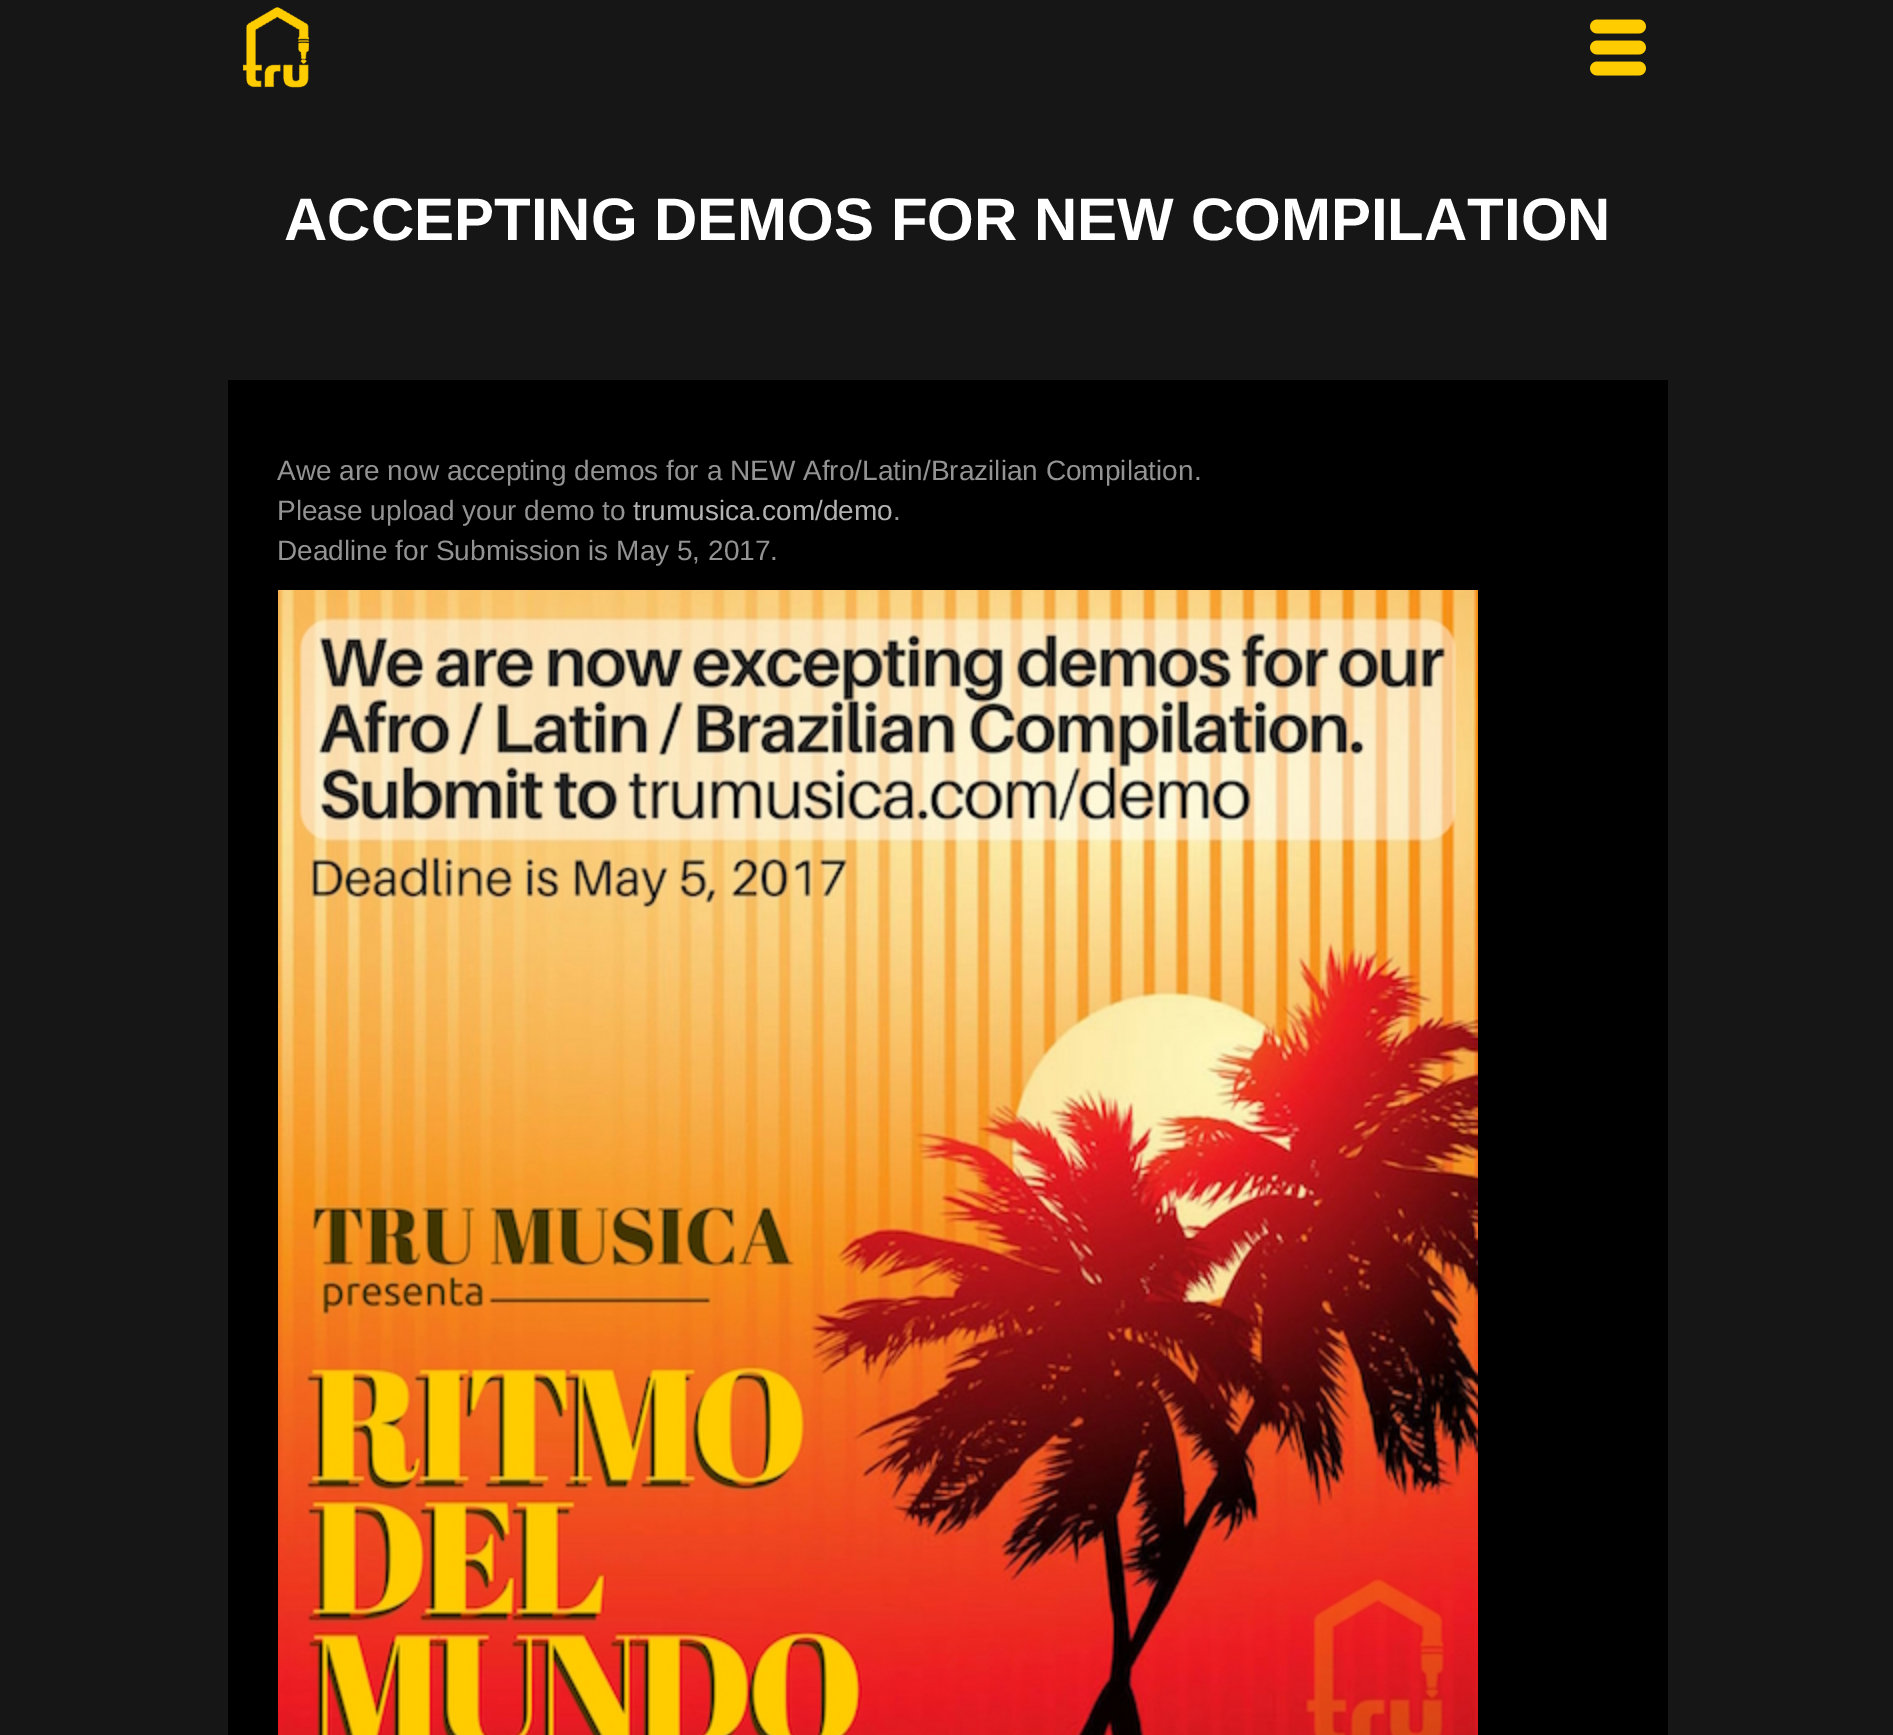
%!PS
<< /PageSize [1893 1735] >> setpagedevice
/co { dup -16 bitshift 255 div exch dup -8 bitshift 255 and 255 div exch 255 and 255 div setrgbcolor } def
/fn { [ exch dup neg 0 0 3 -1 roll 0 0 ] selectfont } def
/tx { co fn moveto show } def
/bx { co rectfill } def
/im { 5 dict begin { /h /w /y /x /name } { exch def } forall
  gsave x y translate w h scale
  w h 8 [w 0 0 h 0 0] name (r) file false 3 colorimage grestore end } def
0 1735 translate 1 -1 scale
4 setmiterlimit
0 0 1893 1735 16#161616 bx
(media/1.raw) 243 7 66 81 im
(media/2.raw) 1590 19 56 57 im
228 380 1440 1355 16#000000 bx
(media/3.raw) 278 590 1200 1145 im
(ACCEPTING DEMOS FOR NEW COMPILATION) 284 240 /LiberationSans-Bold 60 16#FFFFFF tx
(Awe are now accepting demos for a NEW Afro/Latin/Brazilian Compilation.) 277 480 /LiberationSans-Regular 28 16#939393 tx
(Please upload your demo to) 277 520 /LiberationSans-Regular 28 16#939393 tx
(trumusica.com/demo) 633 520 /LiberationSans-Regular 28 16#B2B2B2 tx
(.) 893 520 /LiberationSans-Regular 28 16#939393 tx
(Deadline for Submission is May 5, 2017.) 277 560 /LiberationSans-Regular 28 16#939393 tx
showpage
